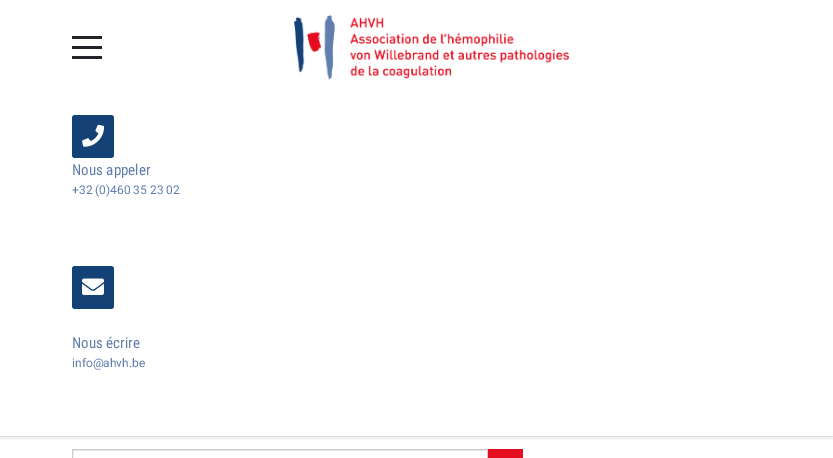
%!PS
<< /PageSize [833 458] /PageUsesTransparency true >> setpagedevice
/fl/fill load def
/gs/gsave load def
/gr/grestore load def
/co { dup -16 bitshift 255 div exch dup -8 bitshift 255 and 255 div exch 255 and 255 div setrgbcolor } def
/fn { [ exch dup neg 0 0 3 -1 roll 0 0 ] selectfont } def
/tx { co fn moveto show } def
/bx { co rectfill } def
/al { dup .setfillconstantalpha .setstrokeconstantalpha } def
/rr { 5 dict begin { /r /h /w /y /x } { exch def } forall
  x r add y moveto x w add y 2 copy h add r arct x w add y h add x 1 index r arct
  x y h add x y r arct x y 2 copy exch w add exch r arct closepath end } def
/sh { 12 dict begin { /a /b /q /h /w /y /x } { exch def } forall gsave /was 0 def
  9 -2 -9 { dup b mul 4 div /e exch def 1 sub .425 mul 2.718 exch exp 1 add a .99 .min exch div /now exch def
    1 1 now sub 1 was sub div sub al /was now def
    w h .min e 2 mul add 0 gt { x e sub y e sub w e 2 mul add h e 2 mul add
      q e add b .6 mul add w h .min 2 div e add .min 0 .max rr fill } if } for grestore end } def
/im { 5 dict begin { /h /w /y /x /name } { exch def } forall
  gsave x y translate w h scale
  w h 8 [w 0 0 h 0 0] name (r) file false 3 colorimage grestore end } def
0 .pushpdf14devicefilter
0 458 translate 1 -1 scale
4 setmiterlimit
0 0 833 458 16#FFFFFF bx
gs
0 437 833 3 rectclip
16#000000 co
0 2 833 437 0 2 .07 sh
gr
0 436 833 1 16#DEE2E6 bx
72 46 30 3 16#212529 bx
72 36 30 3 16#212529 bx
72 56 30 3 16#212529 bx
(media/1.raw) 294 15 275 65 im
16#144176 co
72 115 42 43 3 rr fl
(media/2.raw) 82 124 22 23 im
72 266 42 43 3 rr fl
(media/3.raw) 82 278 22 17 im
73 450 414 1 16#ECECEC bx
16#CCCCCC co
72.5 449.5 415 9 rectstroke
488 449 35 9 16#E40E20 bx
(Nous appeler) 72 175 /RobotoCondensed-Regular 15 16#607EAD tx
(+32 \(0\)460 35 23 02) 72 194 /Roboto-Regular 12 16#607EAD tx
(Nous écrire) 72 348 /RobotoCondensed-Regular 15 16#607EAD tx
(info@ahvh.be) 72 367 /Roboto-Regular 12 16#607EAD tx
.poppdf14devicefilter showpage
